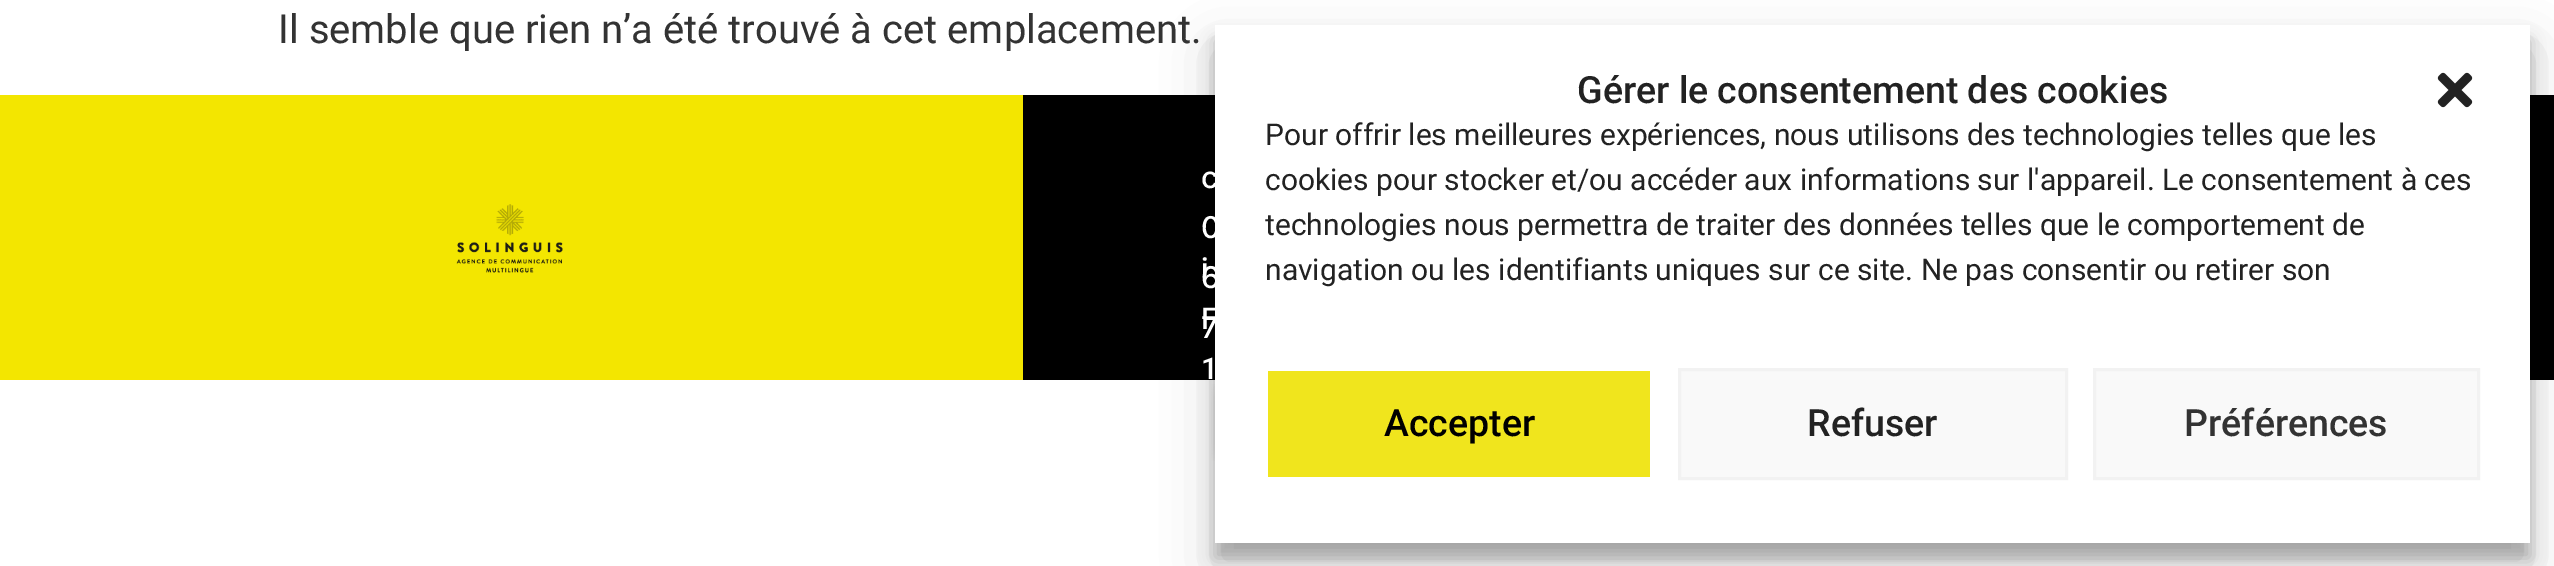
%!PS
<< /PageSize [2554 566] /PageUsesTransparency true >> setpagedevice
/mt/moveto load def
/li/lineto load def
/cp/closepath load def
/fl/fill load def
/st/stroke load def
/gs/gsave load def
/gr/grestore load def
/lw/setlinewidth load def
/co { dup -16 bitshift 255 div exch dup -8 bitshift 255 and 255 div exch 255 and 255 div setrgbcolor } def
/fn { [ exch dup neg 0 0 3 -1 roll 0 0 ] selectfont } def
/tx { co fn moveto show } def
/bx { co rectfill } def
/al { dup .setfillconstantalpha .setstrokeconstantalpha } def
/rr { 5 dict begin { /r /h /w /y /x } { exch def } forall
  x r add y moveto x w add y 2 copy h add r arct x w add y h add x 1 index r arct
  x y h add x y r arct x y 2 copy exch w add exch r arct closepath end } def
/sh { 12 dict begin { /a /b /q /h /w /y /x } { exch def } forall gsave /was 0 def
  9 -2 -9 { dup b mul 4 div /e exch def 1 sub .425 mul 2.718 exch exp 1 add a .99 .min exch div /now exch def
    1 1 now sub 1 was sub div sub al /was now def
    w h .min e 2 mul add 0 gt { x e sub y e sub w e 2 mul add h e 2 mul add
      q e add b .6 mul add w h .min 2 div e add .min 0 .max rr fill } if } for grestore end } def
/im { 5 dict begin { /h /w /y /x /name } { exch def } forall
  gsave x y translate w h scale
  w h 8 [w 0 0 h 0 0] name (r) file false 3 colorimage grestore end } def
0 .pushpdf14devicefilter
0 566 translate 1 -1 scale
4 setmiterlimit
0 0 2554 566 16#FFFFFF bx
0 95 1023 285 16#F3E600 bx
(media/1.raw) 456 204 107 69 im
1023 95 1531 285 16#000000 bx
(media/2.raw) 1211 384 4 77 im
1215 40 1315 518 0 7.5 .23 sh
1215 50 1315 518 0 25 .19 sh
1215 25 1315 518 16#FFFFFF bx
(media/3.raw) 2437 72 36 36 im
1268 371 382 106 16#F0E51D bx
16#F9F9F9 co
1679.5 369.5 mt 2066.5 369.5 li 2066.5 478.5 li 1679.5 478.5 li cp gs fl gr
16#F2F2F2 co
3 lw
st
16#F9F9F9 co
2094.5 369.5 mt 2478.5 369.5 li 2478.5 478.5 li 2094.5 478.5 li cp gs fl gr
16#F2F2F2 co
st
(Il semble que rien n’a été trouvé à cet emplacement.) 278 43 /Roboto-Regular 40 16#333333 tx
/Inter-Medium 30 fn
16#FFFFFF co
1201 188 mt 2 0 (c) ashow
1201 238 mt 2 0 (0) ashow
1201 288 mt 2 0 (6) ashow
1201 338 mt 2 0 (7) ashow
/Roboto-Medium 30 fn
1201 279 mt 2 0 (i) ashow
1201 329 mt 2 0 (F) ashow
1201 379 mt 2 0 (1) ashow
(Gérer le consentement des cookies) 1577 103 /Roboto-Medium 37.5 16#222222 tx
(Pour offrir les meilleures expériences, nous utilisons des technologies telles que les) 1265 145 /Roboto-Regular 30 16#222222 tx
(cookies pour stocker et/ou accéder aux informations sur l'appareil. Le consentement à ces) 1265 190 /Roboto-Regular 30 16#222222 tx
(technologies nous permettra de traiter des données telles que le comportement de) 1265 235 /Roboto-Regular 30 16#222222 tx
(navigation ou les identifiants uniques sur ce site. Ne pas consentir ou retirer son) 1265 280 /Roboto-Regular 30 16#222222 tx
(Accepter) 1384 436 /Roboto-Medium 37.5 16#000000 tx
(Refuser) 1807 436 /Roboto-Medium 37.5 16#222222 tx
(Préférences) 2184 436 /Roboto-Medium 37.5 16#333333 tx
.poppdf14devicefilter showpage
